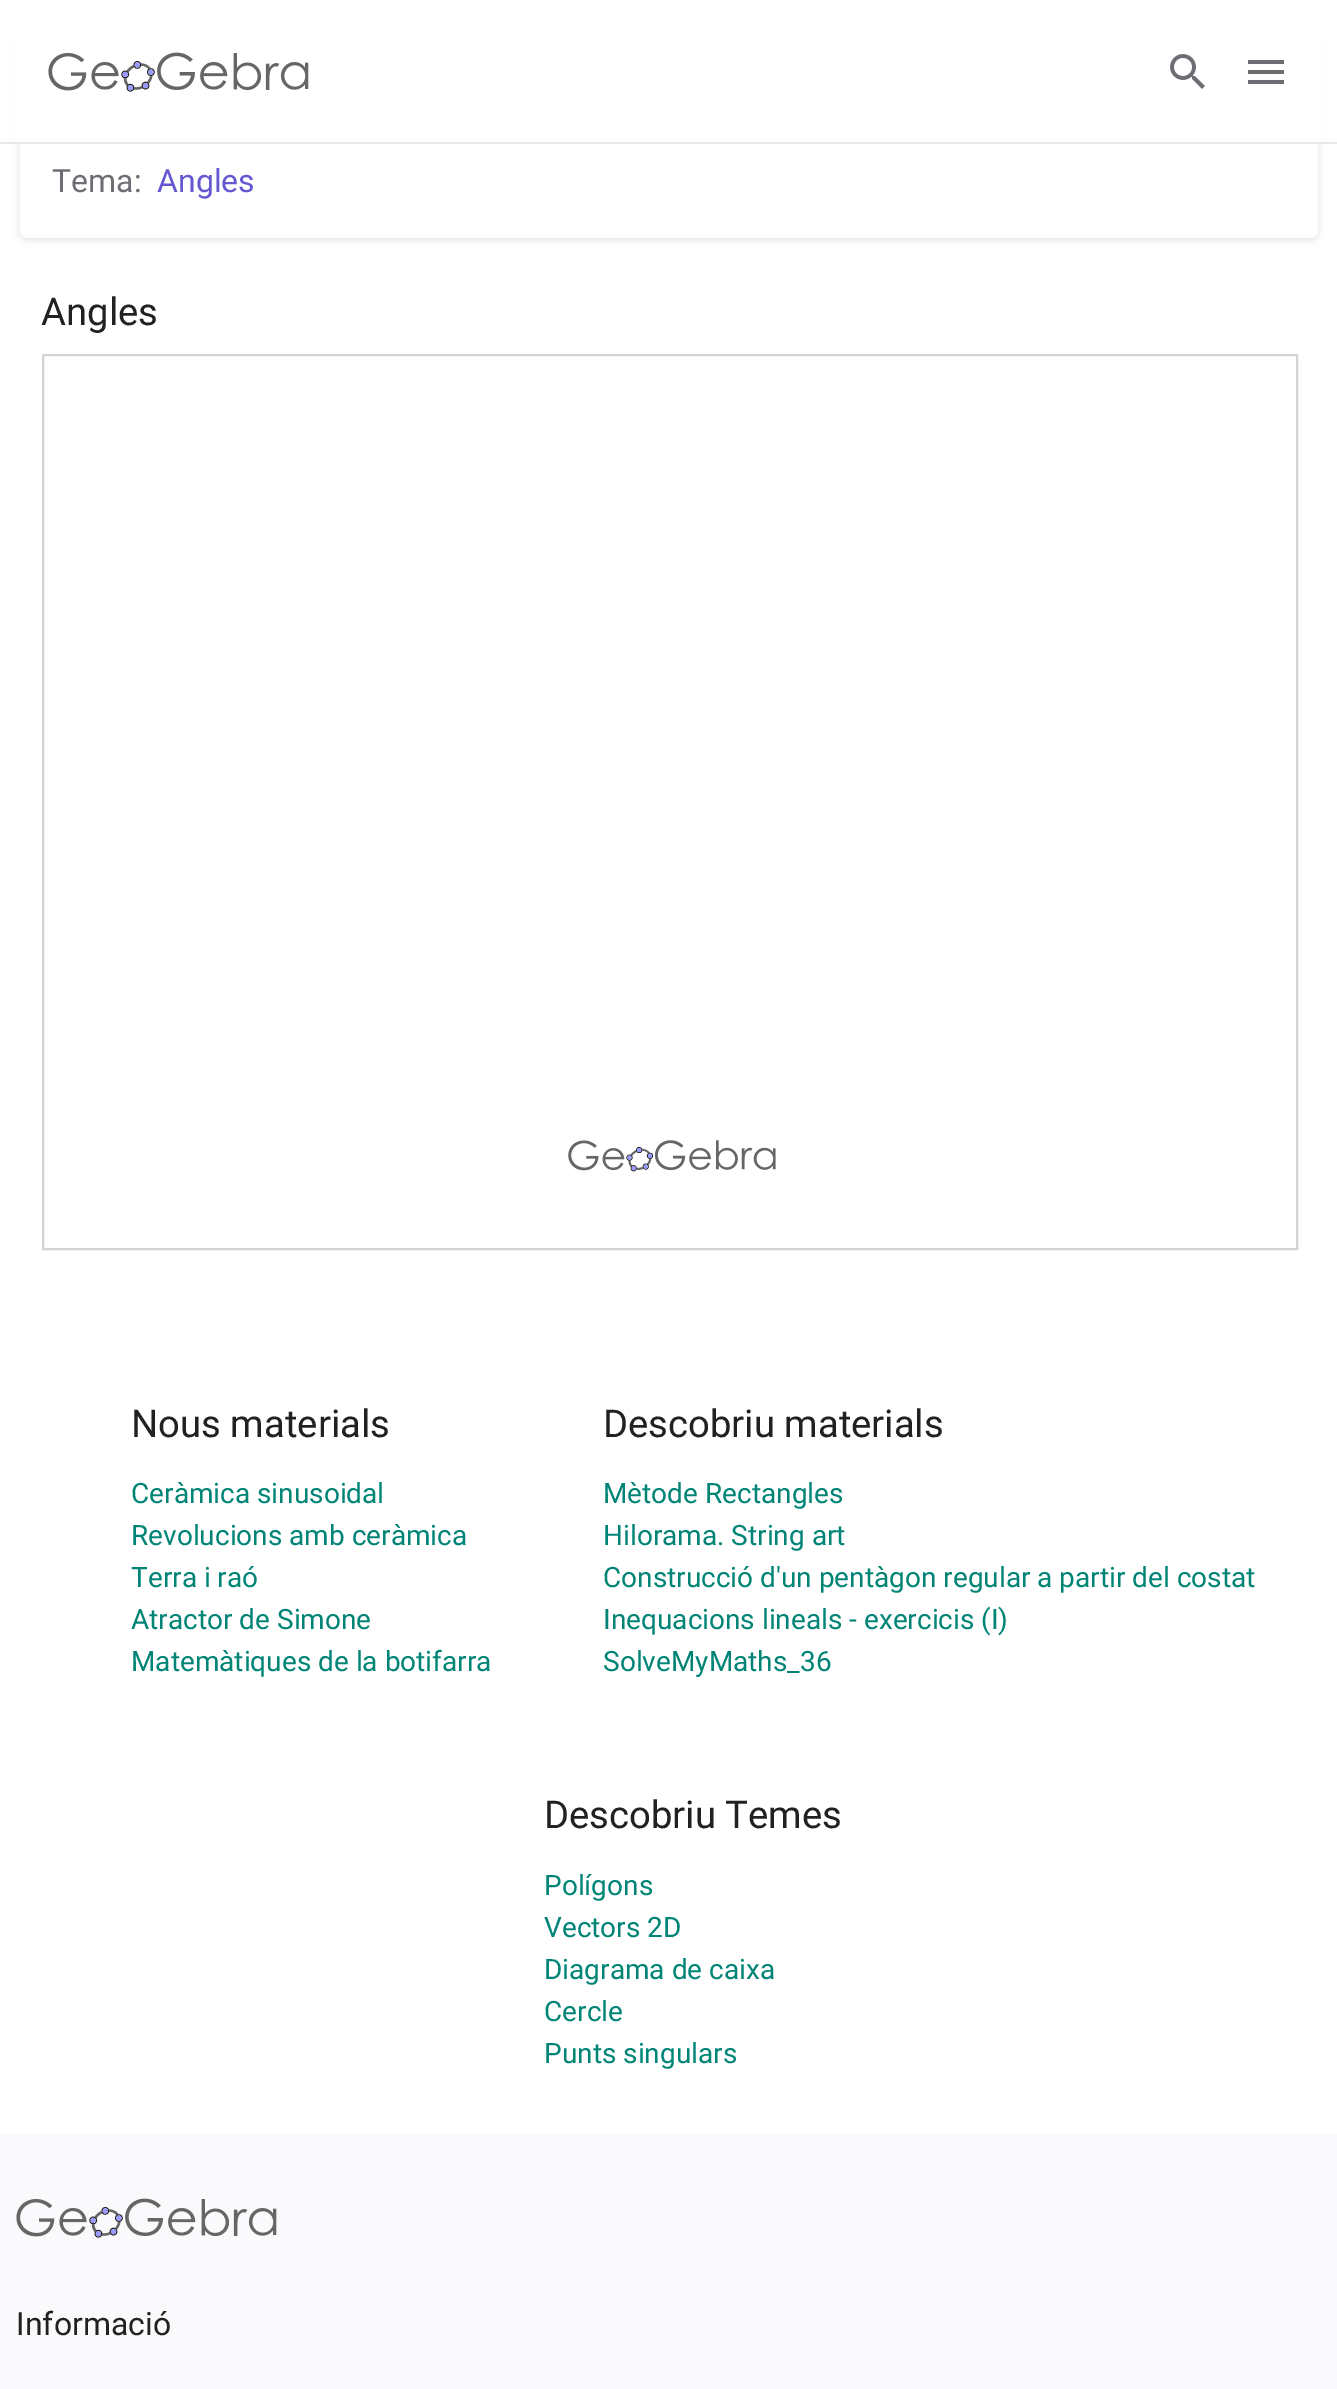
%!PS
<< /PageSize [1337 2389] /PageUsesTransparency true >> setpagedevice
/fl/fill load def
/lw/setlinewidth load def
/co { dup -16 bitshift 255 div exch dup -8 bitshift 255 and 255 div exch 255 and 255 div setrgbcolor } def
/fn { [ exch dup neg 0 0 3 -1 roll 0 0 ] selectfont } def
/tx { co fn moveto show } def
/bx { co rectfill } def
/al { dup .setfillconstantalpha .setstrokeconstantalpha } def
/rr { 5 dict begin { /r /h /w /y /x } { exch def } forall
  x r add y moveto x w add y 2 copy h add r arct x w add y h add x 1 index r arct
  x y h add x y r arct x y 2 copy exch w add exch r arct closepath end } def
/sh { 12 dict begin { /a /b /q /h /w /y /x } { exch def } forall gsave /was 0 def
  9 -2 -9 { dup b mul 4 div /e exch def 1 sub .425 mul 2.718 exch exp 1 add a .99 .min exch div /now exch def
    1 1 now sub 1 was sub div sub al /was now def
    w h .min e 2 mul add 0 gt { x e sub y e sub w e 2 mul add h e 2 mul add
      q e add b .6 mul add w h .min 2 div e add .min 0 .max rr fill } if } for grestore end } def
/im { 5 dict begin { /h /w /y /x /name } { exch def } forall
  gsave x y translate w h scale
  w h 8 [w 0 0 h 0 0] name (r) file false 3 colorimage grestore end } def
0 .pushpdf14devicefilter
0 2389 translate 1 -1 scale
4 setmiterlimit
0 0 1337 2389 16#FFFFFF bx
16#1C1C1F co
20 32 1298 208 8 4 .14 sh
16#FFFFFF co
20 30 1298 208 8 rr fl
14 26 1310 116 16#FFFFFF bx
0 142 1337 2 16#E6E6EB bx
(media/1.raw) 48 52 261 40 im
(media/2.raw) 1170 54 35 35 im
(media/3.raw) 1248 60 36 24 im
(media/4.raw) 568 1140 208 32 im
16#D3D3D3 co
2 lw
43 355 1254 894 rectstroke
0 2134 1337 255 16#FAFAFC bx
(media/5.raw) 16 2198 261 40 im
(Tema:) 52 192 /Roboto-Regular 32 16#6E6D73 tx
(Angles) 157 192 /Roboto-Regular 32 16#6557D2 tx
(Angles) 41 325 /Roboto-Regular 38.25 16#212121 tx
(Nous materials) 131 1437 /Roboto-Regular 38.25 16#212121 tx
(Ceràmica sinusoidal) 131 1503 /Roboto-Regular 28 16#008475 tx
(Revolucions amb ceràmica) 131 1545 /Roboto-Regular 28 16#008475 tx
(Terra i raó) 131 1587 /Roboto-Regular 28 16#008475 tx
(Atractor de Simone) 131 1629 /Roboto-Regular 28 16#008475 tx
(Matemàtiques de la botifarra) 131 1671 /Roboto-Regular 28 16#008475 tx
(Descobriu materials) 603 1437 /Roboto-Regular 38.25 16#212121 tx
(Mètode Rectangles) 603 1503 /Roboto-Regular 28 16#008475 tx
(Hilorama. String art) 603 1545 /Roboto-Regular 28 16#008475 tx
(Construcció d'un pentàgon regular a partir del costat) 603 1587 /Roboto-Regular 28 16#008475 tx
(Inequacions lineals - exercicis \(I\)) 603 1629 /Roboto-Regular 28 16#008475 tx
(SolveMyMaths_36) 603 1671 /Roboto-Regular 28 16#008475 tx
(Descobriu Temes) 544 1828 /Roboto-Regular 38.25 16#212121 tx
(Polígons) 544 1895 /Roboto-Regular 28 16#008475 tx
(Vectors 2D) 544 1937 /Roboto-Regular 28 16#008475 tx
(Diagrama de caixa) 544 1979 /Roboto-Regular 28 16#008475 tx
(Cercle) 544 2021 /Roboto-Regular 28 16#008475 tx
(Punts singulars) 544 2063 /Roboto-Regular 28 16#008475 tx
(Informació) 16 2335 /Roboto-Regular 32 16#212121 tx
.poppdf14devicefilter showpage
